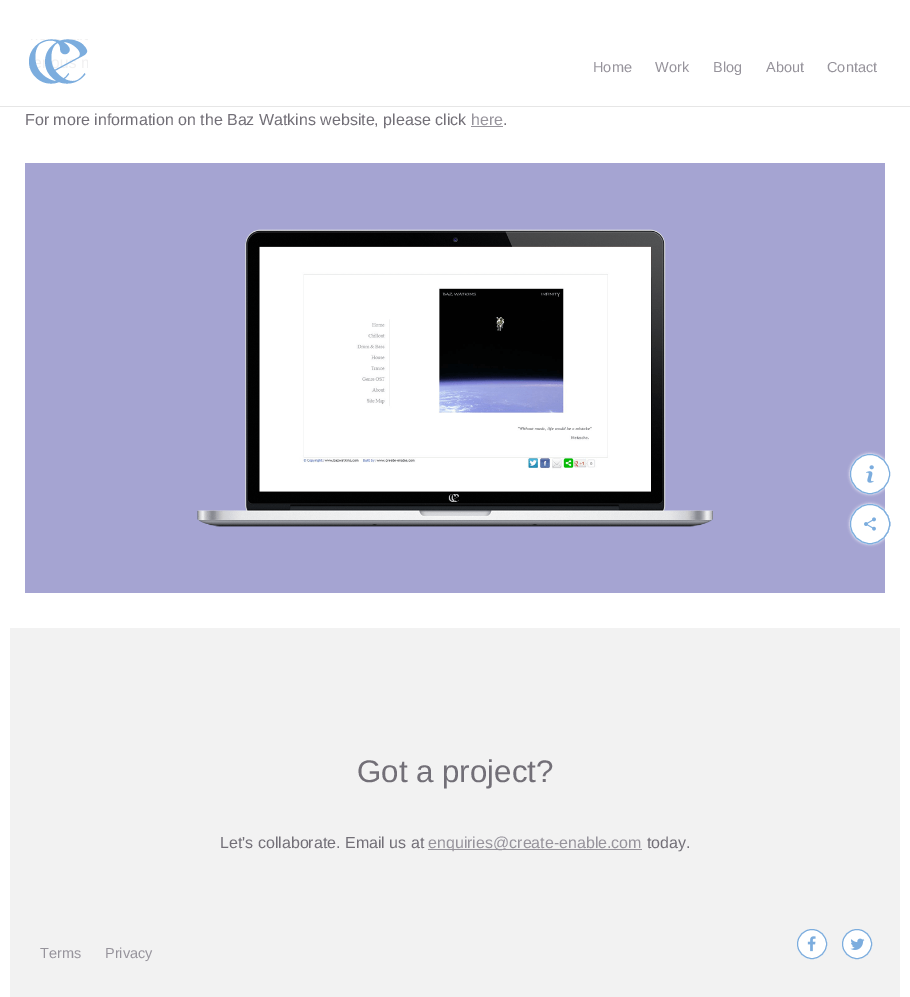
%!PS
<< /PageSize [910 997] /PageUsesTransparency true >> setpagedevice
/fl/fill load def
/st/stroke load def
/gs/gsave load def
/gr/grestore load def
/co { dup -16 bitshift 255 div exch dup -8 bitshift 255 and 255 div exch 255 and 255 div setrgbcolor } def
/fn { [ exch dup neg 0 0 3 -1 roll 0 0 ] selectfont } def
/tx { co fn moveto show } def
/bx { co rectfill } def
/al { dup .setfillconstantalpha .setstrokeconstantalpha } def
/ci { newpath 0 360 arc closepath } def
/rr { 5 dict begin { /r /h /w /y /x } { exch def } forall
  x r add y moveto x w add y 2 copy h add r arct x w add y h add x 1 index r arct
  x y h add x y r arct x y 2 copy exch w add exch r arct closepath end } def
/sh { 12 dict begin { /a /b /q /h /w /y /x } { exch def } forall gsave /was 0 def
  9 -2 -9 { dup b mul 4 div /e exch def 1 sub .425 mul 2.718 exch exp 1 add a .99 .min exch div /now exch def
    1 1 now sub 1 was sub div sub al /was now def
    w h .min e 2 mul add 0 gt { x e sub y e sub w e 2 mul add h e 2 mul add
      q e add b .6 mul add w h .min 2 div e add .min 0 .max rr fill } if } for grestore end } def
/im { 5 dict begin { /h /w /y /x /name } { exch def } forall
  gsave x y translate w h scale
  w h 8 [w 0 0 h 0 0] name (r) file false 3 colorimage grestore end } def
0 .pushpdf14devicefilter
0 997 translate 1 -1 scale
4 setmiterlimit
0 0 910 997 16#FFFFFF bx
gs
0 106 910 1 rectclip
16#000000 co
0 0 910 106 0 1 .3 sh
gr
(media/1.raw) 29 39 59 45 im
471 126 32 1 16#96939B bx
(media/2.raw) 25 163 860 430 im
16#FFFFFF co
850 454 40 40 20 1.5 1 sh
870 474 19.5 ci gs fl gr
16#7CADDE co
st
(media/3.raw) 866 465 8 18 im
870 524 19.5 ci st
870 524 19.5 ci st
870 524 19.5 ci st
870 524 19.5 ci st
16#FFFFFF co
850 504 40 40 20 1.5 1 sh
870 524 19.5 ci gs fl gr
16#7CADDE co
st
(media/4.raw) 864 517 12 14 im
10 628 890 369 16#F2F2F2 bx
428 849 214 1 16#96939B bx
16#FFFFFF co
812 944 14.5 ci gs fl gr
16#7CADDE co
st
(media/5.raw) 807 936 9 16 im
16#FFFFFF co
857 944 14.5 ci gs fl gr
16#7CADDE co
st
(media/6.raw) 850 938 15 12 im
(Home) 593 72 /LiberationSans-Regular 14.5 16#96939B tx
(Work) 655 72 /LiberationSans-Regular 14.5 16#96939B tx
(Blog) 713 72 /LiberationSans-Regular 14.5 16#96939B tx
(About) 766 72 /LiberationSans-Regular 14.5 16#96939B tx
(Contact) 827 72 /LiberationSans-Regular 14.5 16#96939B tx
(For more information on the Baz Watkins website, please click) 25 125 /LiberationSans-Regular 16 16#726F77 tx
(here) 471 125 /LiberationSans-Regular 16 16#96939B tx
(.) 503 125 /LiberationSans-Regular 16 16#726F77 tx
(Got a project?) 357 782 /LiberationSans-Regular 31.25 16#726F77 tx
(Let's collaborate. Email us at) 220 848 /LiberationSans-Regular 16 16#726F77 tx
(enquiries@create-enable.com) 428 848 /LiberationSans-Regular 16 16#96939B tx
(today.) 647 848 /LiberationSans-Regular 16 16#726F77 tx
(Terms) 40 958 /LiberationSans-Regular 14.5 16#96939B tx
(Privacy) 105 958 /LiberationSans-Regular 14.5 16#96939B tx
.poppdf14devicefilter showpage
